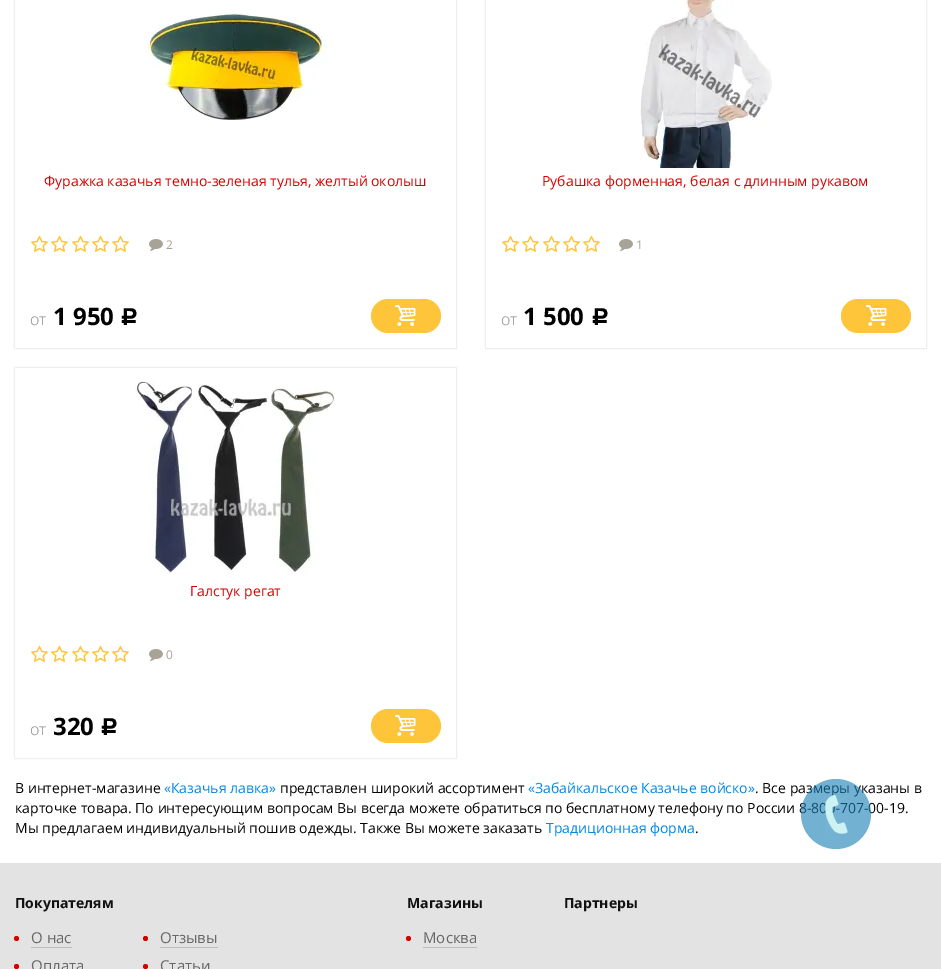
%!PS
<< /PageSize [941 969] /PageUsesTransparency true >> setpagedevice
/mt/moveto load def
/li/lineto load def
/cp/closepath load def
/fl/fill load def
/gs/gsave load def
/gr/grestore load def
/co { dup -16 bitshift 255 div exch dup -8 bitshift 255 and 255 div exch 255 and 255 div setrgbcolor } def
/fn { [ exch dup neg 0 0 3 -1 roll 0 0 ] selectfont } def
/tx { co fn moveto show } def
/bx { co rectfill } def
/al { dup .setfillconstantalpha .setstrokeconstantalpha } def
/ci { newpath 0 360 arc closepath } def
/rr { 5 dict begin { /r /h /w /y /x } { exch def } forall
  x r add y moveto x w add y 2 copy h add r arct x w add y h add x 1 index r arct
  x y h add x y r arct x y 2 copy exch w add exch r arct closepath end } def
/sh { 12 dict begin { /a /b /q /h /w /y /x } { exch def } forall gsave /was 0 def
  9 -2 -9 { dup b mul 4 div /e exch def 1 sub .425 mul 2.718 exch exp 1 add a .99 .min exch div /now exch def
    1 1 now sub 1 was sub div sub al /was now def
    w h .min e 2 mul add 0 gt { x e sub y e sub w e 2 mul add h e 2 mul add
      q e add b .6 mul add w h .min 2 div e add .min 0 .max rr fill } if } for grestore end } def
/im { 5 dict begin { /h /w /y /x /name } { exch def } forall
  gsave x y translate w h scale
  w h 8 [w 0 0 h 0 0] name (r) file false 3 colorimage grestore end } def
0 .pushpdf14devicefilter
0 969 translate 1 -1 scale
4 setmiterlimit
0 0 941 969 16#FFFFFF bx
gs
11 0 mt 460 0 li 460 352 li 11 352 li cp 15 -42 mt 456 -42 li 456 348 li 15 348 li cp eoclip newpath
16#000000 co
15 -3 441 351 0 1 .2 sh
gr
(media/1.raw) 147 12 180 108 im
(media/2.raw) 31 235 98 17 im
(media/3.raw) 149 239 14 12 im
16#FFC53A co
371 299 70 34 17 rr fl
(media/4.raw) 395 305 21 21 im
gs
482 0 mt 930 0 li 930 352 li 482 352 li cp 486 -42 mt 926 -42 li 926 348 li 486 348 li cp eoclip newpath
16#000000 co
486 -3 440 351 0 1 .2 sh
gr
(media/5.raw) 640 0 132 168 im
(media/2.raw) 502 235 98 17 im
(media/3.raw) 619 239 14 12 im
841 299 70 34 17 rr fl
(media/4.raw) 866 305 21 21 im
gs
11 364 mt 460 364 li 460 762 li 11 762 li cp 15 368 mt 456 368 li 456 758 li 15 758 li cp eoclip newpath
16#000000 co
15 368 441 390 0 1 .2 sh
gr
(media/6.raw) 135 381 200 193 im
(media/2.raw) 31 645 98 17 im
(media/3.raw) 149 649 14 12 im
371 709 70 34 17 rr fl
(media/4.raw) 395 715 21 21 im
0 863 941 106 16#E3E3E3 bx
16#D50000 co
16.5 938.5 2.5 ci fl
31 947 41 1 16#BBBBBB bx
16#D50000 co
145.5 938.5 2.5 ci fl
160 947 58 1 16#BBBBBB bx
16#D50000 co
16.5 966.5 2.5 ci fl
145.5 966.5 2.5 ci fl
408.5 938.5 2.5 ci fl
423 947 54 1 16#BBBBBB bx
(Фуражка казачья темно-зеленая тулья, желтый околыш) 44 186 /OpenSans-Regular 14 16#D50000 tx
(2) 166 249 /OpenSans-Regular 12 16#A8A397 tx
(от) 30 325 /OpenSans-Light 16 16#888888 tx
(1 950) 53 325 /OpenSans-Bold 24 16#010101 tx
(Р) 120 325 /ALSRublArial-Bold 24 16#010101 tx
(Рубашка форменная, белая с длинным рукавом) 542 186 /OpenSans-Regular 14 16#D50000 tx
(1) 636 249 /OpenSans-Regular 12 16#A8A397 tx
(от) 501 325 /OpenSans-Light 16 16#888888 tx
(1 500) 523 325 /OpenSans-Bold 24 16#010101 tx
(Р) 591 325 /ALSRublArial-Bold 24 16#010101 tx
(Галстук регат) 190 596 /OpenSans-Regular 14 16#D50000 tx
(0) 166 659 /OpenSans-Regular 12 16#A8A397 tx
(от) 30 735 /OpenSans-Light 16 16#888888 tx
(320) 53 735 /OpenSans-Bold 24 16#010101 tx
(Р) 100 735 /ALSRublArial-Bold 24 16#010101 tx
(В интернет-магазине) 15 793 /OpenSans-Regular 14 16#010101 tx
(«Казачья лавка») 164 793 /OpenSans-Regular 14 16#0087E5 tx
(представлен широкий ассортимент) 280 793 /OpenSans-Regular 14 16#010101 tx
(«Забайкальское Казачье войско») 528 793 /OpenSans-Regular 14 16#0087E5 tx
(. Все размеры указаны в) 755 793 /OpenSans-Regular 14 16#010101 tx
(карточке товара. По интересующим вопросам Вы всегда можете обратиться по бесплатному телефону по России 8-800-707-00-19.) 15 813 /OpenSans-Regular 14 16#010101 tx
(Мы предлагаем индивидуальный пошив одежды. Также Вы можете заказать) 15 833 /OpenSans-Regular 14 16#010101 tx
(Традиционная форма) 546 833 /OpenSans-Regular 14 16#0087E5 tx
(.) 695 833 /OpenSans-Regular 14 16#010101 tx
0.61 al
16#1A80B6 co
836 814 35 ci fl
1 al
(media/7.raw) 825 795 23 39 im
(Покупателям) 15 908 /OpenSans-Bold 14 16#111111 tx
(О нас) 31 943 /OpenSans-Regular 15 16#666666 tx
(Отзывы) 160 943 /OpenSans-Regular 15 16#666666 tx
(Оплата) 31 971 /OpenSans-Regular 15 16#666666 tx
(Статьи) 160 971 /OpenSans-Regular 15 16#666666 tx
(Магазины) 407 908 /OpenSans-Bold 14 16#111111 tx
(Москва) 423 943 /OpenSans-Regular 15 16#666666 tx
(Партнеры) 564 908 /OpenSans-Bold 14 16#111111 tx
.poppdf14devicefilter showpage
